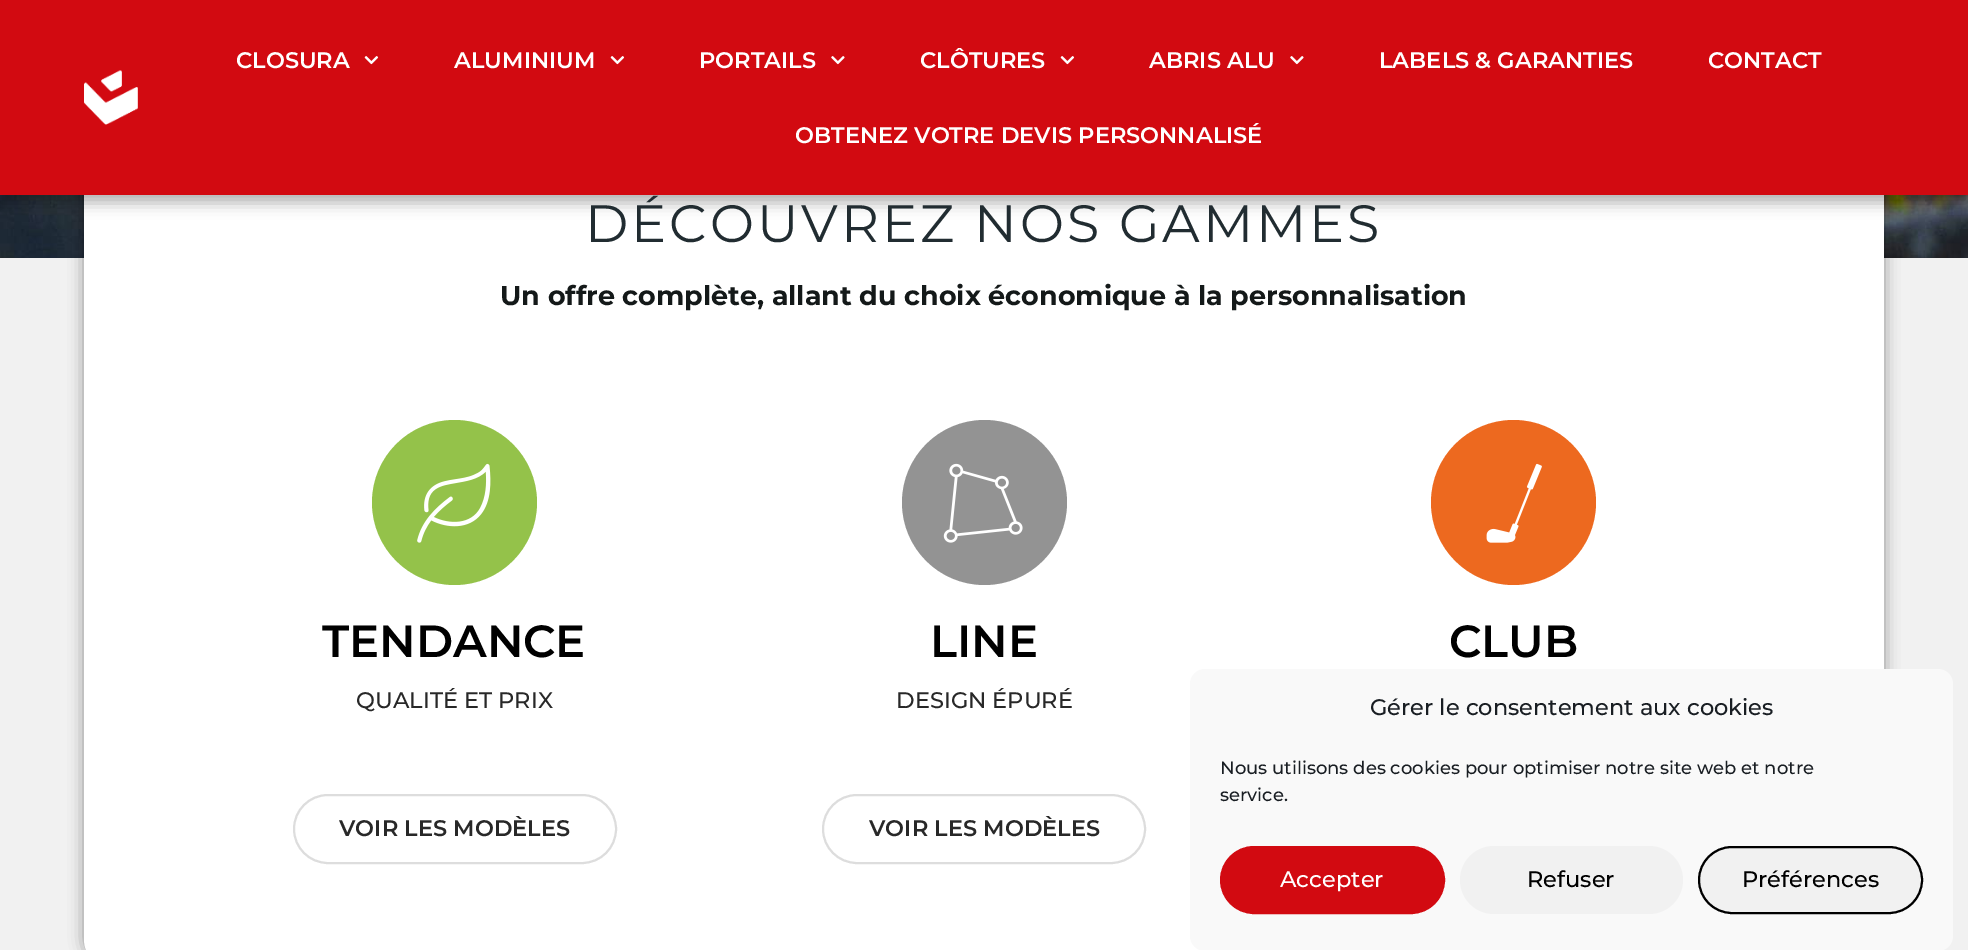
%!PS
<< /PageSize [1968 950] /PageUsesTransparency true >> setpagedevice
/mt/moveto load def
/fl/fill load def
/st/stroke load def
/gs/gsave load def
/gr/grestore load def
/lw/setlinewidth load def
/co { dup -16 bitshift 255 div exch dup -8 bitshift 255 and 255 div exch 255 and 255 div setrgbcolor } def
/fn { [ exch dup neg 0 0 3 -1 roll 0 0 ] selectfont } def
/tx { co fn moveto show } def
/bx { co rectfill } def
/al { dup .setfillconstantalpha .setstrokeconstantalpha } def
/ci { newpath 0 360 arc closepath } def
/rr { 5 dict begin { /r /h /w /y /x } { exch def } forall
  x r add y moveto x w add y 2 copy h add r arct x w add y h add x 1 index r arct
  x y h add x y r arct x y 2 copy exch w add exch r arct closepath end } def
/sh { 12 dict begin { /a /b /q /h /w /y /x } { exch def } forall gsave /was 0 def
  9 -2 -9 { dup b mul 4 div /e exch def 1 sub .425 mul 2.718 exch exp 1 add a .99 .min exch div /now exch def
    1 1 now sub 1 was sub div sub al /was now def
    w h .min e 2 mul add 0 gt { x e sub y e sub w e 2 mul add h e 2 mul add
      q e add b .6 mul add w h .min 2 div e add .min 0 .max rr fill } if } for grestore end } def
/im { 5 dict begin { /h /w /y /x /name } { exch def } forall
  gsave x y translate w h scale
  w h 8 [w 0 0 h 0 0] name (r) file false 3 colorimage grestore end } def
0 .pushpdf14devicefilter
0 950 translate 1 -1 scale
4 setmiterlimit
0 0 1968 950 16#FFFFFF bx
(media/4.raw) 0 195 1968 63 im
0 258 1968 692 16#F1F1F1 bx
16#000000 co
84 93 1800 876 30 7.5 .4 sh
16#FFFFFF co
84 93 1800 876 30 rr fl
16#000000 co
0 8 1968 195 0 7.5 .3 sh
0 0 1968 195 16#D20A11 bx
(media/1.raw) 84 70 54 55 im
(media/2.raw) 364 56 15 9 im
(media/2.raw) 610 56 15 9 im
(media/3.raw) 831 56 14 9 im
(media/2.raw) 1060 56 15 9 im
(media/3.raw) 1290 56 14 9 im
16#94C24A co
454.5 502.5 82.5 ci fl
(media/5.raw) 417 463 74 80 im
16#DDDDDD co
2 lw
294 795 322 68 34 rr st
16#939393 co
984.5 502.5 82.5 ci fl
(media/6.raw) 943 463 80 80 im
16#DDDDDD co
823 795 322 68 34 rr st
16#ED691F co
1513.5 502.5 82.5 ci fl
(media/7.raw) 1486 463 56 80 im
16#F9F9F9 co
1190 669 763 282 15 rr fl
16#D20A11 co
1221 847 223 66 33 rr gs fl gr
st
16#F1F1F1 co
1460 846 223 68 34 rr fl
1699 847 223 66 33 rr gs fl gr
16#000000 co
st
(CLOSURA) 236 68 /Montserrat-SemiBold 22.5 16#FFFFFF tx
(ALUMINIUM) 454 68 /Montserrat-SemiBold 22.5 16#FFFFFF tx
(PORTAILS) 699 68 /Montserrat-SemiBold 22.5 16#FFFFFF tx
(CLÔTURES) 920 68 /Montserrat-SemiBold 22.5 16#FFFFFF tx
(ABRIS ALU) 1149 68 /Montserrat-SemiBold 22.5 16#FFFFFF tx
(LABELS & GARANTIES) 1379 68 /Montserrat-SemiBold 22.5 16#FFFFFF tx
(CONTACT) 1708 68 /Montserrat-SemiBold 22.5 16#FFFFFF tx
(OBTENEZ VOTRE DEVIS PERSONNALISÉ) 795 143 /Montserrat-SemiBold 22.5 16#FFFFFF tx
/Montserrat-Regular 52.5 fn
16#212C31 co
585 242 mt 3 0 (DÉCOUVREZ NOS GAMMES) ashow
(Un offre complète, allant du choix économique à la personnalisation) 500 305 /Montserrat-Bold 27 16#141919 tx
(TENDANCE) 322 657 /Montserrat-SemiBold 45 16#000000 tx
(QUALITÉ ET PRIX) 356 708 /Montserrat-Medium 22.5 16#282828 tx
(VOIR LES MODÈLES) 339 836 /Montserrat-SemiBold 22.5 16#282828 tx
(LINE) 930 657 /Montserrat-SemiBold 45 16#000000 tx
(DESIGN ÉPURÉ) 896 708 /Montserrat-Medium 22.5 16#282828 tx
(VOIR LES MODÈLES) 869 836 /Montserrat-SemiBold 22.5 16#282828 tx
(CLUB) 1449 657 /Montserrat-SemiBold 45 16#000000 tx
(Gérer le consentement aux cookies) 1370 715 /Montserrat-Medium 22.5 16#191E23 tx
(Nous utilisons des cookies pour optimiser notre site web et notre) 1220 774 /Montserrat-Medium 18 16#191E23 tx
(service.) 1220 801 /Montserrat-Medium 18 16#191E23 tx
(Accepter) 1280 887 /Montserrat-Medium 22.5 16#FFFFFF tx
(Refuser) 1527 887 /Montserrat-Medium 22.5 16#000000 tx
(Préférences) 1742 887 /Montserrat-Medium 22.5 16#000000 tx
.poppdf14devicefilter showpage
